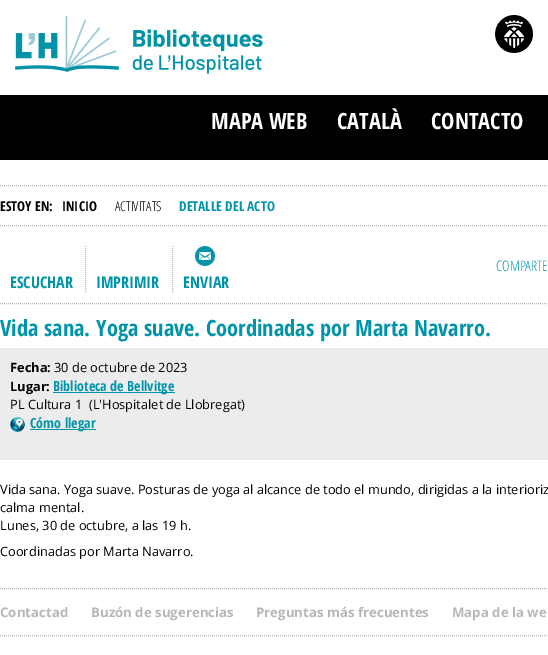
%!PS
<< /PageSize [548 655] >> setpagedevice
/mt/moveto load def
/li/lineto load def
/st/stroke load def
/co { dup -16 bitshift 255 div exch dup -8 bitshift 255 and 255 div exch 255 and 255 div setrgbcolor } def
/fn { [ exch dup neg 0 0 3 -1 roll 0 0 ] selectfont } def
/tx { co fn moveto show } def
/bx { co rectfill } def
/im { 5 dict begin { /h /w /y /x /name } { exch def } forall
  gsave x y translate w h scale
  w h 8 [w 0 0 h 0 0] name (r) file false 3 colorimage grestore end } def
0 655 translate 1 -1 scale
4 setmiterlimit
0 0 548 655 16#FFFFFF bx
0 95 548 65 16#000000 bx
(media/1.raw) 15 16 248 58 im
(media/2.raw) 495 15 38 38 im
16#B7B7B7 co
[1 1] 0 setdash
0 185.5 mt 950 185.5 li st
0 225.5 mt 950 225.5 li st
0 303.5 mt 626 303.5 li st
85.5 246 mt 85.5 293 li st
172.5 246 mt 172.5 293 li st
(media/3.raw) 195 246 20 20 im
0 348 548 112 16#ECECEC bx
53 392 122 1 16#0094AB bx
(media/4.raw) 10 417 15 15 im
30 429 66 1 16#0094AB bx
16#B7B7B7 co
0 588.5 mt 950 588.5 li st
0 635.5 mt 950 635.5 li st
(MAPA WEB) 211 129 /OpenSansCondensed-Bold 22.4 16#FFFFFF tx
(CATALÀ) 337 129 /OpenSansCondensed-Bold 22.4 16#FFFFFF tx
(CONTACTO) 431 129 /OpenSansCondensed-Bold 22.4 16#FFFFFF tx
(ESTOY EN:) 0 211 /OpenSansCondensed-Bold 13.5 16#000000 tx
(INICIO) 62 211 /OpenSansCondensed-Bold 13.5 16#000000 tx
(ACTIVITATS) 115 211 /OpenSansCondensed-Light 13.5 16#000000 tx
(DETALLE DEL ACTO) 179 211 /OpenSansCondensed-Bold 13.5 16#0094AB tx
(COMPARTE) 496 271 /OpenSansCondensed-Light 14.5 16#0094AB tx
(ESCUCHAR) 10 288 /OpenSansCondensed-Bold 16 16#0094AB tx
(IMPRIMIR) 96 288 /OpenSansCondensed-Bold 16 16#0094AB tx
(ENVIAR) 183 288 /OpenSansCondensed-Bold 16 16#0094AB tx
(Vida sana. Yoga suave. Coordinadas por Marta Navarro.) 0 336 /OpenSansCondensed-Bold 22.4 16#0094AB tx
(Fecha:) 10 372 /OpenSans-Bold 12.8 16#000000 tx
(30 de octubre de 2023) 54 372 /OpenSans-Regular 12.8 16#000000 tx
(Lugar:) 10 391 /OpenSans-Bold 12.8 16#000000 tx
(Biblioteca de Bellvitge) 53 391 /OpenSansCondensed-Bold 14 16#0094AB tx
(PL Cultura 1  \(L'Hospitalet de Llobregat\)) 10 409 /OpenSans-Regular 12.8 16#000000 tx
(Cómo llegar) 30 428 /OpenSansCondensed-Bold 14 16#0094AB tx
(Vida sana. Yoga suave. Posturas de yoga al alcance de todo el mundo, dirigidas a la interioriz) 0 494 /OpenSans-Regular 12.8 16#000000 tx
(calma mental.) 0 512 /OpenSans-Regular 12.8 16#000000 tx
(Lunes, 30 de octubre, a las 19 h.) 0 530 /OpenSans-Regular 12.8 16#000000 tx
(Coordinadas por Marta Navarro.) 0 556 /OpenSans-Regular 12.8 16#000000 tx
(Contactad) 0 617 /OpenSans-Bold 13.25 16#B7B7B7 tx
(Buzón de sugerencias) 91 617 /OpenSans-Bold 13.25 16#B7B7B7 tx
(Preguntas más frecuentes) 256 617 /OpenSans-Bold 13.25 16#B7B7B7 tx
(Mapa de la we) 452 617 /OpenSans-Bold 13.25 16#B7B7B7 tx
showpage
